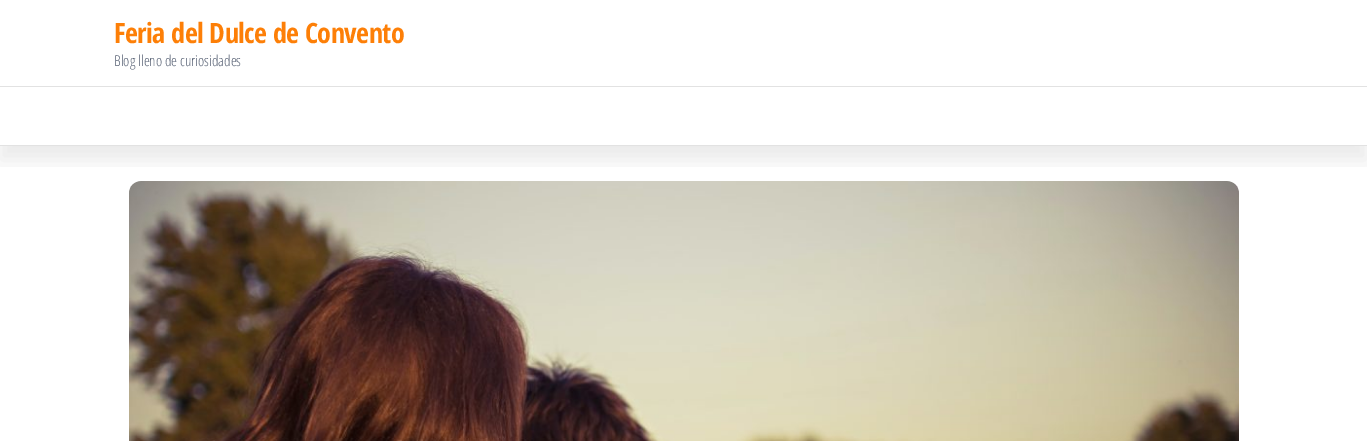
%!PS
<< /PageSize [1367 441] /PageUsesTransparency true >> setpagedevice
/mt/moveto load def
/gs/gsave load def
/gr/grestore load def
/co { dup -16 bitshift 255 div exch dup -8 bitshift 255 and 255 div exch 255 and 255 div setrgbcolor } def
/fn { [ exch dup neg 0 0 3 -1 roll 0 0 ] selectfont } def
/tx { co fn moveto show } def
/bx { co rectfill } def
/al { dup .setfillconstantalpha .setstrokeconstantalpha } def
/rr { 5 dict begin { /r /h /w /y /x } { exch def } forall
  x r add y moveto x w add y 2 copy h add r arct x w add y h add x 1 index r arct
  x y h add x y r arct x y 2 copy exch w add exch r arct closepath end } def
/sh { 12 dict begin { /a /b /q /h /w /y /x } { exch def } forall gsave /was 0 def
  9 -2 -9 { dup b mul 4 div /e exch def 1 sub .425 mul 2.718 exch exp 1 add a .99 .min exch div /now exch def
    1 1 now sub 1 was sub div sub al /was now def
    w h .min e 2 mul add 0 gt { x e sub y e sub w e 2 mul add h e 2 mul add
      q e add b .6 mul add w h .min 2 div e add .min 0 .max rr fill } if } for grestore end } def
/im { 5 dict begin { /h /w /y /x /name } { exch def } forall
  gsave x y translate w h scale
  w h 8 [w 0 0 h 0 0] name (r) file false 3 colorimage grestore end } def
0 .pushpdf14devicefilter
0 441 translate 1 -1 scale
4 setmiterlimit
0 0 1367 441 16#FFFFFF bx
gs
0 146 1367 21 rectclip
16#000000 co
0 100 1367 60 0 10 .08 sh
gr
0 86 1367 1 16#E2E2E2 bx
0 145 1367 1 16#E2E2E2 bx
(media/1.raw) 129 181 1110 260 im
/OpenSansCondensed-Bold 28 fn
16#FD7F07 co
114 43 mt -.55 0 (Feria del Dulce de Convento) ashow
(Blog lleno de curiosidades) 114 66 /OpenSansCondensed-Light 15 16#566073 tx
.poppdf14devicefilter showpage
